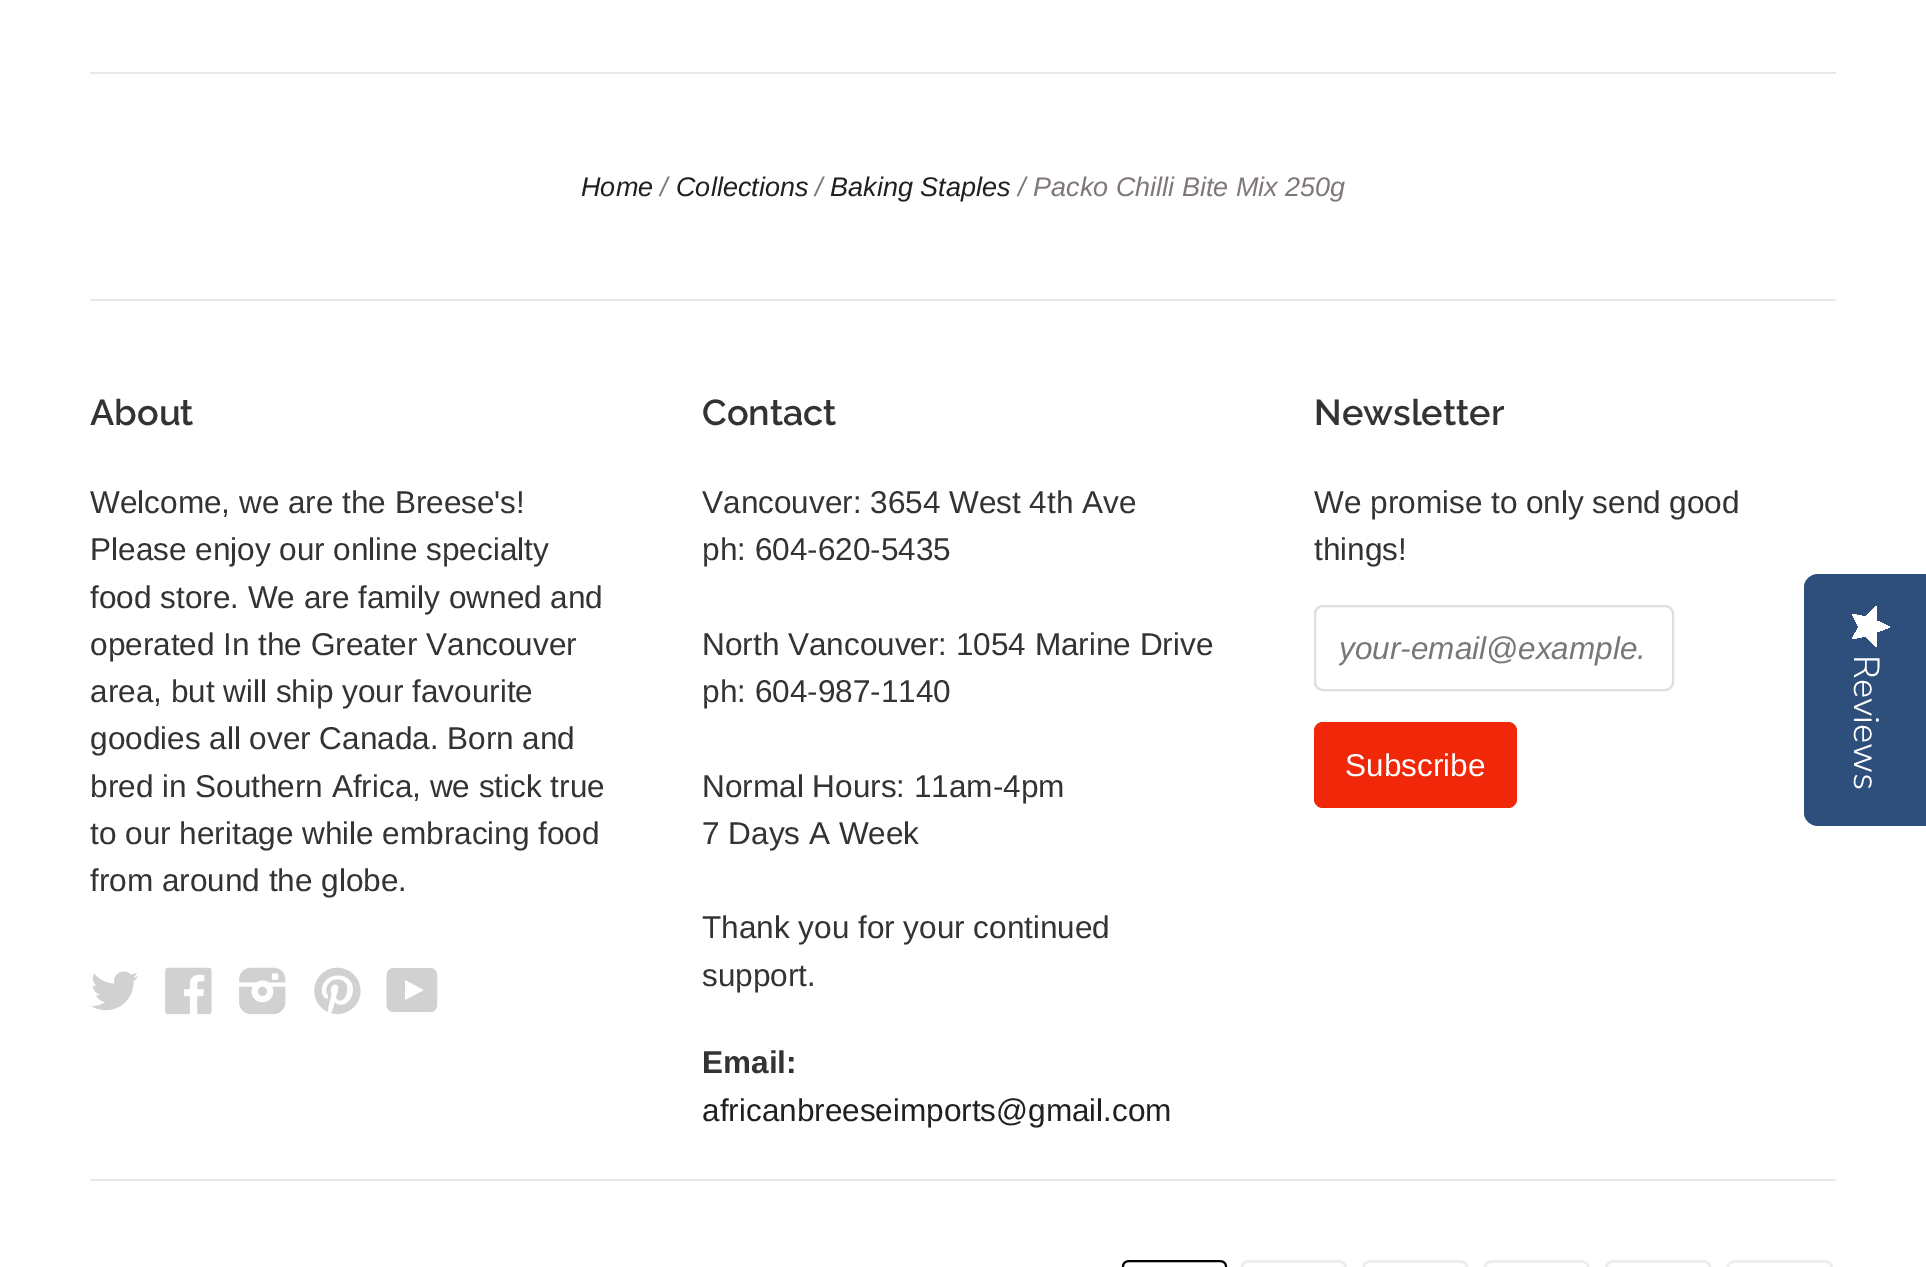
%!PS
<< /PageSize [1926 1267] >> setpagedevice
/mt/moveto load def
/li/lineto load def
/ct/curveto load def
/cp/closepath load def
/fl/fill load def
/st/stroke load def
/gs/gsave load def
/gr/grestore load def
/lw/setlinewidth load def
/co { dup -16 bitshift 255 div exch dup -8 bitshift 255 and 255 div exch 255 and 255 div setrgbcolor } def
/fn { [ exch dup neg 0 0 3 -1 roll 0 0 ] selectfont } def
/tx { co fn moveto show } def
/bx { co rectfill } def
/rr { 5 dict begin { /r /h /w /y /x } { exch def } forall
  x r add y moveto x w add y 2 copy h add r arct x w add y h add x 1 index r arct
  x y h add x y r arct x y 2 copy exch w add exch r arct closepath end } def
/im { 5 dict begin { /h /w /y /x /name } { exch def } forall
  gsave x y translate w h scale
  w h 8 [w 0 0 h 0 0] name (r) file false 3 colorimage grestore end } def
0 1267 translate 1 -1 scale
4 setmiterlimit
0 0 1926 1267 16#FFFFFF bx
90 72 1746 2 16#E8E8E8 bx
90 299 1746 2 16#E8E8E8 bx
(media/1.raw) 91 971 47 40 im
(media/2.raw) 165 967 47 48 im
(media/3.raw) 239 967 47 48 im
(media/4.raw) 314 967 47 48 im
(media/5.raw) 386 968 52 44 im
16#DEDEDE co
2 lw
1315 606 358 84 8 rr st
16#F02708 co
1314 722 203 86 9 rr fl
90 1179 1746 2 16#E8E8E8 bx
(media/6.raw) 1121 1260 107 7 im
(media/7.raw) 1240 1260 107 7 im
(media/8.raw) 1362 1260 107 7 im
(media/7.raw) 1483 1260 107 7 im
(media/8.raw) 1605 1260 107 7 im
(media/7.raw) 1726 1260 107 7 im
16#2E4F7C co
1926 574 mt 1926 826 li 1818 826 li 1811 826 1804 820 1804 813 ct 1804 587 li 1804 580 1811 574 1818 574 ct cp fl
gs 1859 627 mt 1852 639 li 1866 636 li 1876 647 li 1877 632 li 1890 627 li 1877 621 li 1876 606 li 1866 617 li 1852 614 li cp clip newpath
<< /ShadingType 2 /ColorSpace /DeviceRGB /Coords [1890 606 1890 647] /Extend [true true] /Function << /FunctionType 2 /Domain [0 1] /C0 [1 1 1] /C1 [1 1 1] /N 1 >> >> shfill gr
(Home) 581 196 /LiberationSans-Italic 27 16#211F1F tx
(/) 660 196 /LiberationSans-Italic 27 16#807777 tx
(Collections) 676 196 /LiberationSans-Italic 27 16#211F1F tx
(/) 815 196 /LiberationSans-Italic 27 16#807777 tx
(Baking Staples) 830 196 /LiberationSans-Italic 27 16#211F1F tx
(/ Packo Chilli Bite Mix 250g) 1018 196 /LiberationSans-Italic 27 16#807777 tx
(About) 90 425 /Raleway-Thin 36 16#333333 tx
(Welcome, we are the Breese's!) 90 513 /LiberationSans-Regular 31.5 16#333333 tx
(Please enjoy our online specialty) 90 560 /LiberationSans-Regular 31.5 16#333333 tx
(food store. We are family owned and) 90 608 /LiberationSans-Regular 31.5 16#333333 tx
(operated In the Greater Vancouver) 90 655 /LiberationSans-Regular 31.5 16#333333 tx
(area, but will ship your favourite) 90 702 /LiberationSans-Regular 31.5 16#333333 tx
(goodies all over Canada. Born and) 90 749 /LiberationSans-Regular 31.5 16#333333 tx
(bred in Southern Africa, we stick true) 90 797 /LiberationSans-Regular 31.5 16#333333 tx
(to our heritage while embracing food) 90 844 /LiberationSans-Regular 31.5 16#333333 tx
(from around the globe.) 90 891 /LiberationSans-Regular 31.5 16#333333 tx
(Contact) 702 425 /Raleway-Thin 36 16#333333 tx
(Vancouver: 3654 West 4th Ave) 702 513 /LiberationSans-Regular 31.5 16#333333 tx
(ph: 604-620-5435) 702 560 /LiberationSans-Regular 31.5 16#333333 tx
(North Vancouver: 1054 Marine Drive) 702 655 /LiberationSans-Regular 31.5 16#333333 tx
(ph: 604-987-1140) 702 702 /LiberationSans-Regular 31.5 16#333333 tx
(Normal Hours: 11am-4pm) 702 797 /LiberationSans-Regular 31.5 16#333333 tx
(7 Days A Week) 702 844 /LiberationSans-Regular 31.5 16#333333 tx
(Thank you for your continued) 702 938 /LiberationSans-Regular 31.5 16#333333 tx
(support.) 702 986 /LiberationSans-Regular 31.5 16#333333 tx
(Email:) 702 1073 /LiberationSans-Bold 31.5 16#333333 tx
(africanbreeseimports@gmail.com) 702 1121 /LiberationSans-Regular 31.5 16#211F1F tx
(Newsletter) 1314 425 /Raleway-Thin 36 16#333333 tx
(We promise to only send good) 1314 513 /LiberationSans-Regular 31.5 16#333333 tx
(things!) 1314 560 /LiberationSans-Regular 31.5 16#333333 tx
gs
1339 630 310 36 rectclip
(your-email@example.) 1339 659 /LiberationSans-Italic 31.5 16#777777 tx
gr
(Subscribe) 1345 776 /LiberationSans-Regular 31.5 16#FFFFFF tx
/NunitoSans-Light 36 fn
gs 1854 655 translate 90 rotate 0 0 mt (Reviews) show gr
showpage
